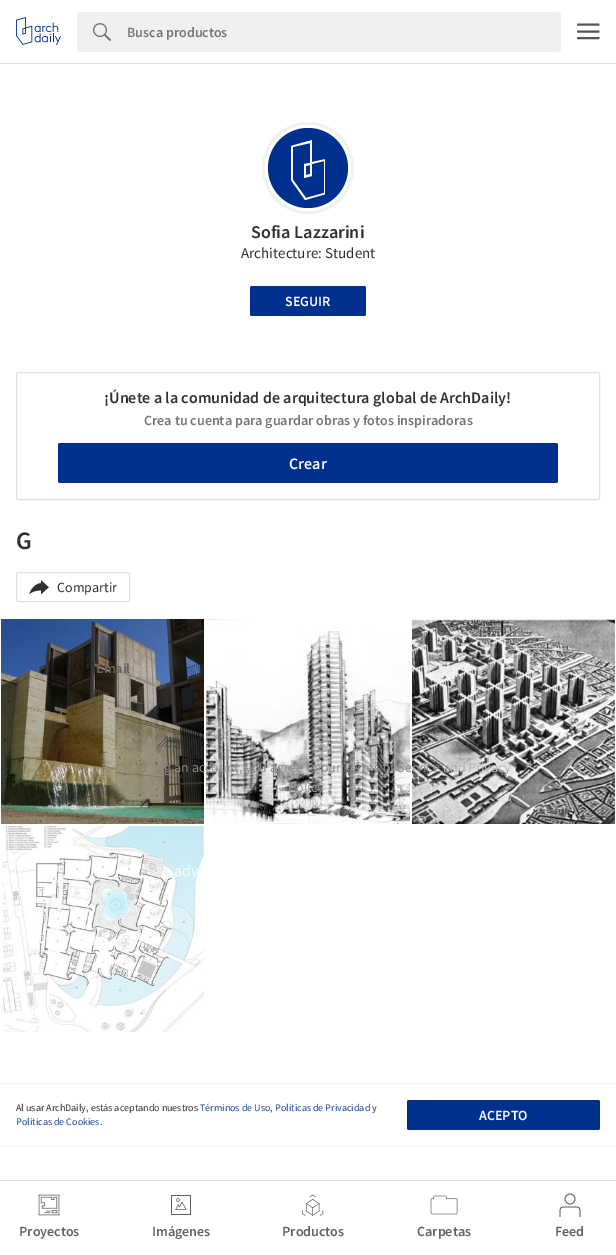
%!PS
<< /PageSize [616 1255] >> setpagedevice
/mt/moveto load def
/li/lineto load def
/ct/curveto load def
/cp/closepath load def
/fl/fill load def
/st/stroke load def
/gs/gsave load def
/gr/grestore load def
/lw/setlinewidth load def
/co { dup -16 bitshift 255 div exch dup -8 bitshift 255 and 255 div exch 255 and 255 div setrgbcolor } def
/fn { [ exch dup neg 0 0 3 -1 roll 0 0 ] selectfont } def
/tx { co fn moveto show } def
/bx { co rectfill } def
/ci { newpath 0 360 arc closepath } def
/rr { 5 dict begin { /r /h /w /y /x } { exch def } forall
  x r add y moveto x w add y 2 copy h add r arct x w add y h add x 1 index r arct
  x y h add x y r arct x y 2 copy exch w add exch r arct closepath end } def
/im { 5 dict begin { /h /w /y /x /name } { exch def } forall
  gsave x y translate w h scale
  w h 8 [w 0 0 h 0 0] name (r) file false 3 colorimage grestore end } def
0 1255 translate 1 -1 scale
4 setmiterlimit
0 0 616 1255 16#FFFFFF bx
0 63 616 1 16#E1E1E1 bx
(media/1.raw) 16 17 45 28 im
16#F0F0F0 co
77 12 484 40 4 rr fl
(media/2.raw) 93 23 18 18 im
127 12 mt 557 12 li 559 12 561 14 561 16 ct 561 48 li 561 50 559 52 557 52 ct 127 52 li cp fl
16#565656 co
2 lw
1 setlinecap
578 24.5 mt 598.5 24.5 li 578 31.5 mt 598.5 31.5 li 578 38 mt 598.5 38 li st
16#F1F1F1 co
6 lw
0 setlinecap
308 168 43 ci st
16#FFFFFF co
3 lw
308 168 41.5 ci st
16#00308E co
308 168 40 ci fl
gs
291 140 34 60 rectclip
16#FFFFFF co
305 200 mt 291 180 li 291 146 li 312 140 li 312 162 li 326 159 li 326 194 li cp 293 180 mt 306 198 li 324 193 li 324 161 li 312 164 li 312 176 li 304 178 li 304 164 li 310 163 li 310 143 li 293 147 li cp 306 166 mt 306 175 li 310 174 li 310 165 li cp fl
gr
250 286 116 30 2 rr fl
16#E1E1E1 co
1 lw
16.5 372.5 583 127 1.5 rr st
16#00308E co
58 443 500 40 2 rr fl
16#E1E1E1 co
16.5 572.5 113 29 1.5 rr st
(media/3.raw) 29 580 20 15 im
(media/4.raw) 1 619 203 205 im
(media/5.raw) 206 619 204 205 im
(media/6.raw) 412 619 203 205 im
(media/7.raw) 1 826 203 206 im
0 1180 616 1 16#E1E1E1 bx
0 1083 616 1 16#F1F1F1 bx
0 1146 616 1 16#F1F1F1 bx
16#00308E co
407 1100 193 30 2 rr fl
(media/8.raw) 38 1194 22 22 im
(media/9.raw) 171 1195 20 20 im
(media/10.raw) 302 1194 22 22 im
(media/11.raw) 430 1195 28 20 im
16#626262 co
.8 lw
570 1199 5 ci st
2 setlinecap
580 1216.5 mt 580 1206 581 1207 570 1207 ct 559 1207 560 1206 560 1216.5 ct st
(Busca productos) 127 37 /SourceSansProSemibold-SemiBold 14 16#767676 tx
(Sofia Lazzarini) 251 238 /SourceSansProSemibold-SemiBold 18 16#303030 tx
(Architecture: Student) 241 258 /SourceSansPro-Regular 15 16#303030 tx
(SEGUIR) 285 306 /SourceSansProSemibold-SemiBold 14 16#FFFFFF tx
(¡Únete a la comunidad de arquitectura global de ArchDaily!) 104 403 /SourceSansProSemibold-SemiBold 16 16#303030 tx
(Crea tu cuenta para guardar obras y fotos inspiradoras) 144 425 /SourceSansProSemibold-SemiBold 14 16#767676 tx
(Crear) 289 469 /SourceSansProSemibold-SemiBold 16 16#FFFFFF tx
(G) 16 549 /SourceSansProSemibold-SemiBold 25 16#303030 tx
(Compartir) 57 592 /SourceSansPro-Regular 14 16#303030 tx
(Email) 96 673 /SourceSansProSemibold-SemiBold 14 16#6B6357 tx
(g an account, you agree to our) 164 772 /SourceSansPro-Regular 14 16#908E86 tx
(Terms of Service) 343 772 /SourceSansPro-Regular 14 16#8E8E8E tx
(and) 443 772 /SourceSansPro-Regular 14 16#B1B1B1 tx
(Privacy) 468 772 /SourceSansPro-Regular 14 16#B7B7B7 tx
(Policy) 288 792 /SourceSansPro-Regular 14 16#979797 tx
(ady) 174 876 /SourceSansPro-Regular 16 16#F8FBFC tx
(Al usar ArchDaily, estás aceptando nuestros) 16 1111 /SourceSansPro-Regular 10 16#303030 tx
(Términos de Uso) 200 1111 /SourceSansPro-Regular 10 16#1A4599 tx
(,) 270 1111 /SourceSansPro-Regular 10 16#303030 tx
(Políticas de Privacidad) 275 1111 /SourceSansPro-Regular 10 16#1A4599 tx
(y) 372 1111 /SourceSansPro-Regular 10 16#303030 tx
(Políticas de Cookies) 16 1125 /SourceSansPro-Regular 10 16#1A4599 tx
(.) 100 1125 /SourceSansPro-Regular 10 16#303030 tx
(ACEPTO) 479 1120 /SourceSansProSemibold-SemiBold 14 16#FFFFFF tx
(Proyectos) 19 1236 /SourceSansProSemibold-SemiBold 14 16#626262 tx
(Imágenes) 152 1236 /SourceSansProSemibold-SemiBold 14 16#626262 tx
(Productos) 282 1236 /SourceSansProSemibold-SemiBold 14 16#626262 tx
(Carpetas) 417 1236 /SourceSansProSemibold-SemiBold 14 16#626262 tx
(Feed) 555 1236 /SourceSansProSemibold-SemiBold 14 16#626262 tx
showpage
